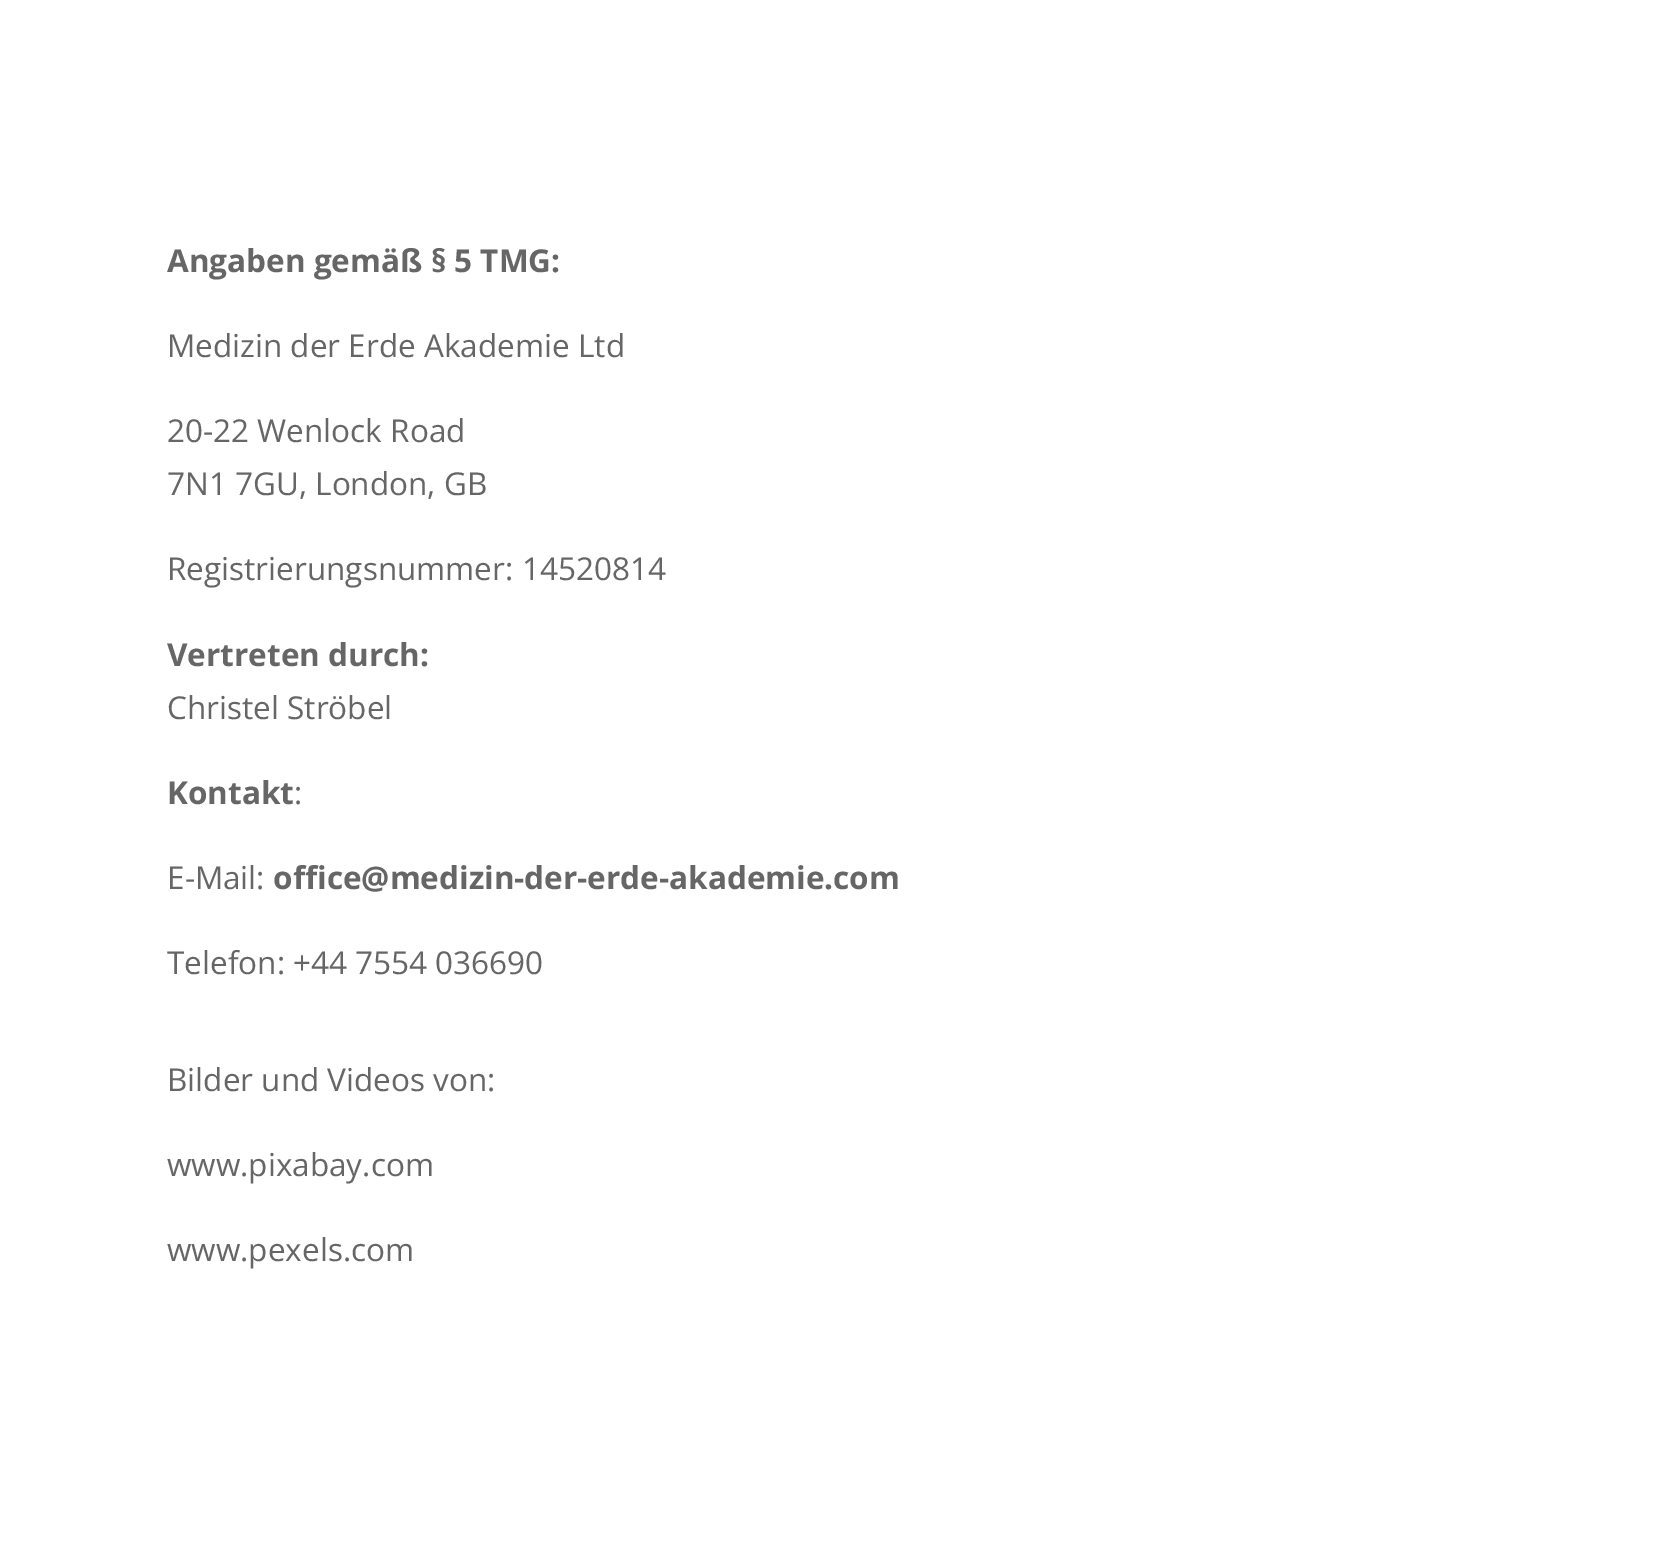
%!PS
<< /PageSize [1669 1555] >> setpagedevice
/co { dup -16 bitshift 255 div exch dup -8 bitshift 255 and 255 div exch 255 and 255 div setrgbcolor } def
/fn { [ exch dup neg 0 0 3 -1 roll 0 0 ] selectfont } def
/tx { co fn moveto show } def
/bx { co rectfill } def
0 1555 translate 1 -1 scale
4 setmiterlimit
0 0 1669 1555 16#FFFFFF bx
(Angaben gemäß § 5 TMG:) 167 272 /OpenSans-Bold 31.5 16#666666 tx
(Medizin der Erde Akademie Ltd) 167 357 /OpenSans-Regular 31.5 16#666666 tx
(20-22 Wenlock Road) 167 442 /OpenSans-Regular 31.5 16#666666 tx
(7N1 7GU, London, GB) 167 495 /OpenSans-Regular 31.5 16#666666 tx
(Registrierungsnummer: 14520814) 167 580 /OpenSans-Regular 31.5 16#666666 tx
(Vertreten durch:) 167 666 /OpenSans-Bold 31.5 16#666666 tx
(Christel Ströbel) 167 719 /OpenSans-Regular 31.5 16#666666 tx
(Kontakt) 167 804 /OpenSans-Bold 31.5 16#666666 tx
(:) 294 804 /OpenSans-Regular 31.5 16#666666 tx
(E-Mail:) 167 889 /OpenSans-Regular 31.5 16#666666 tx
(office@medizin-der-erde-akademie.com) 273 889 /OpenSans-Bold 31.5 16#666666 tx
(Telefon: +44 7554 036690) 167 974 /OpenSans-Regular 31.5 16#666666 tx
(Bilder und Videos von:) 167 1091 /OpenSans-Regular 31.5 16#666666 tx
(www.pixabay.com) 167 1176 /OpenSans-Regular 31.5 16#666666 tx
(www.pexels.com) 167 1261 /OpenSans-Regular 31.5 16#666666 tx
showpage
